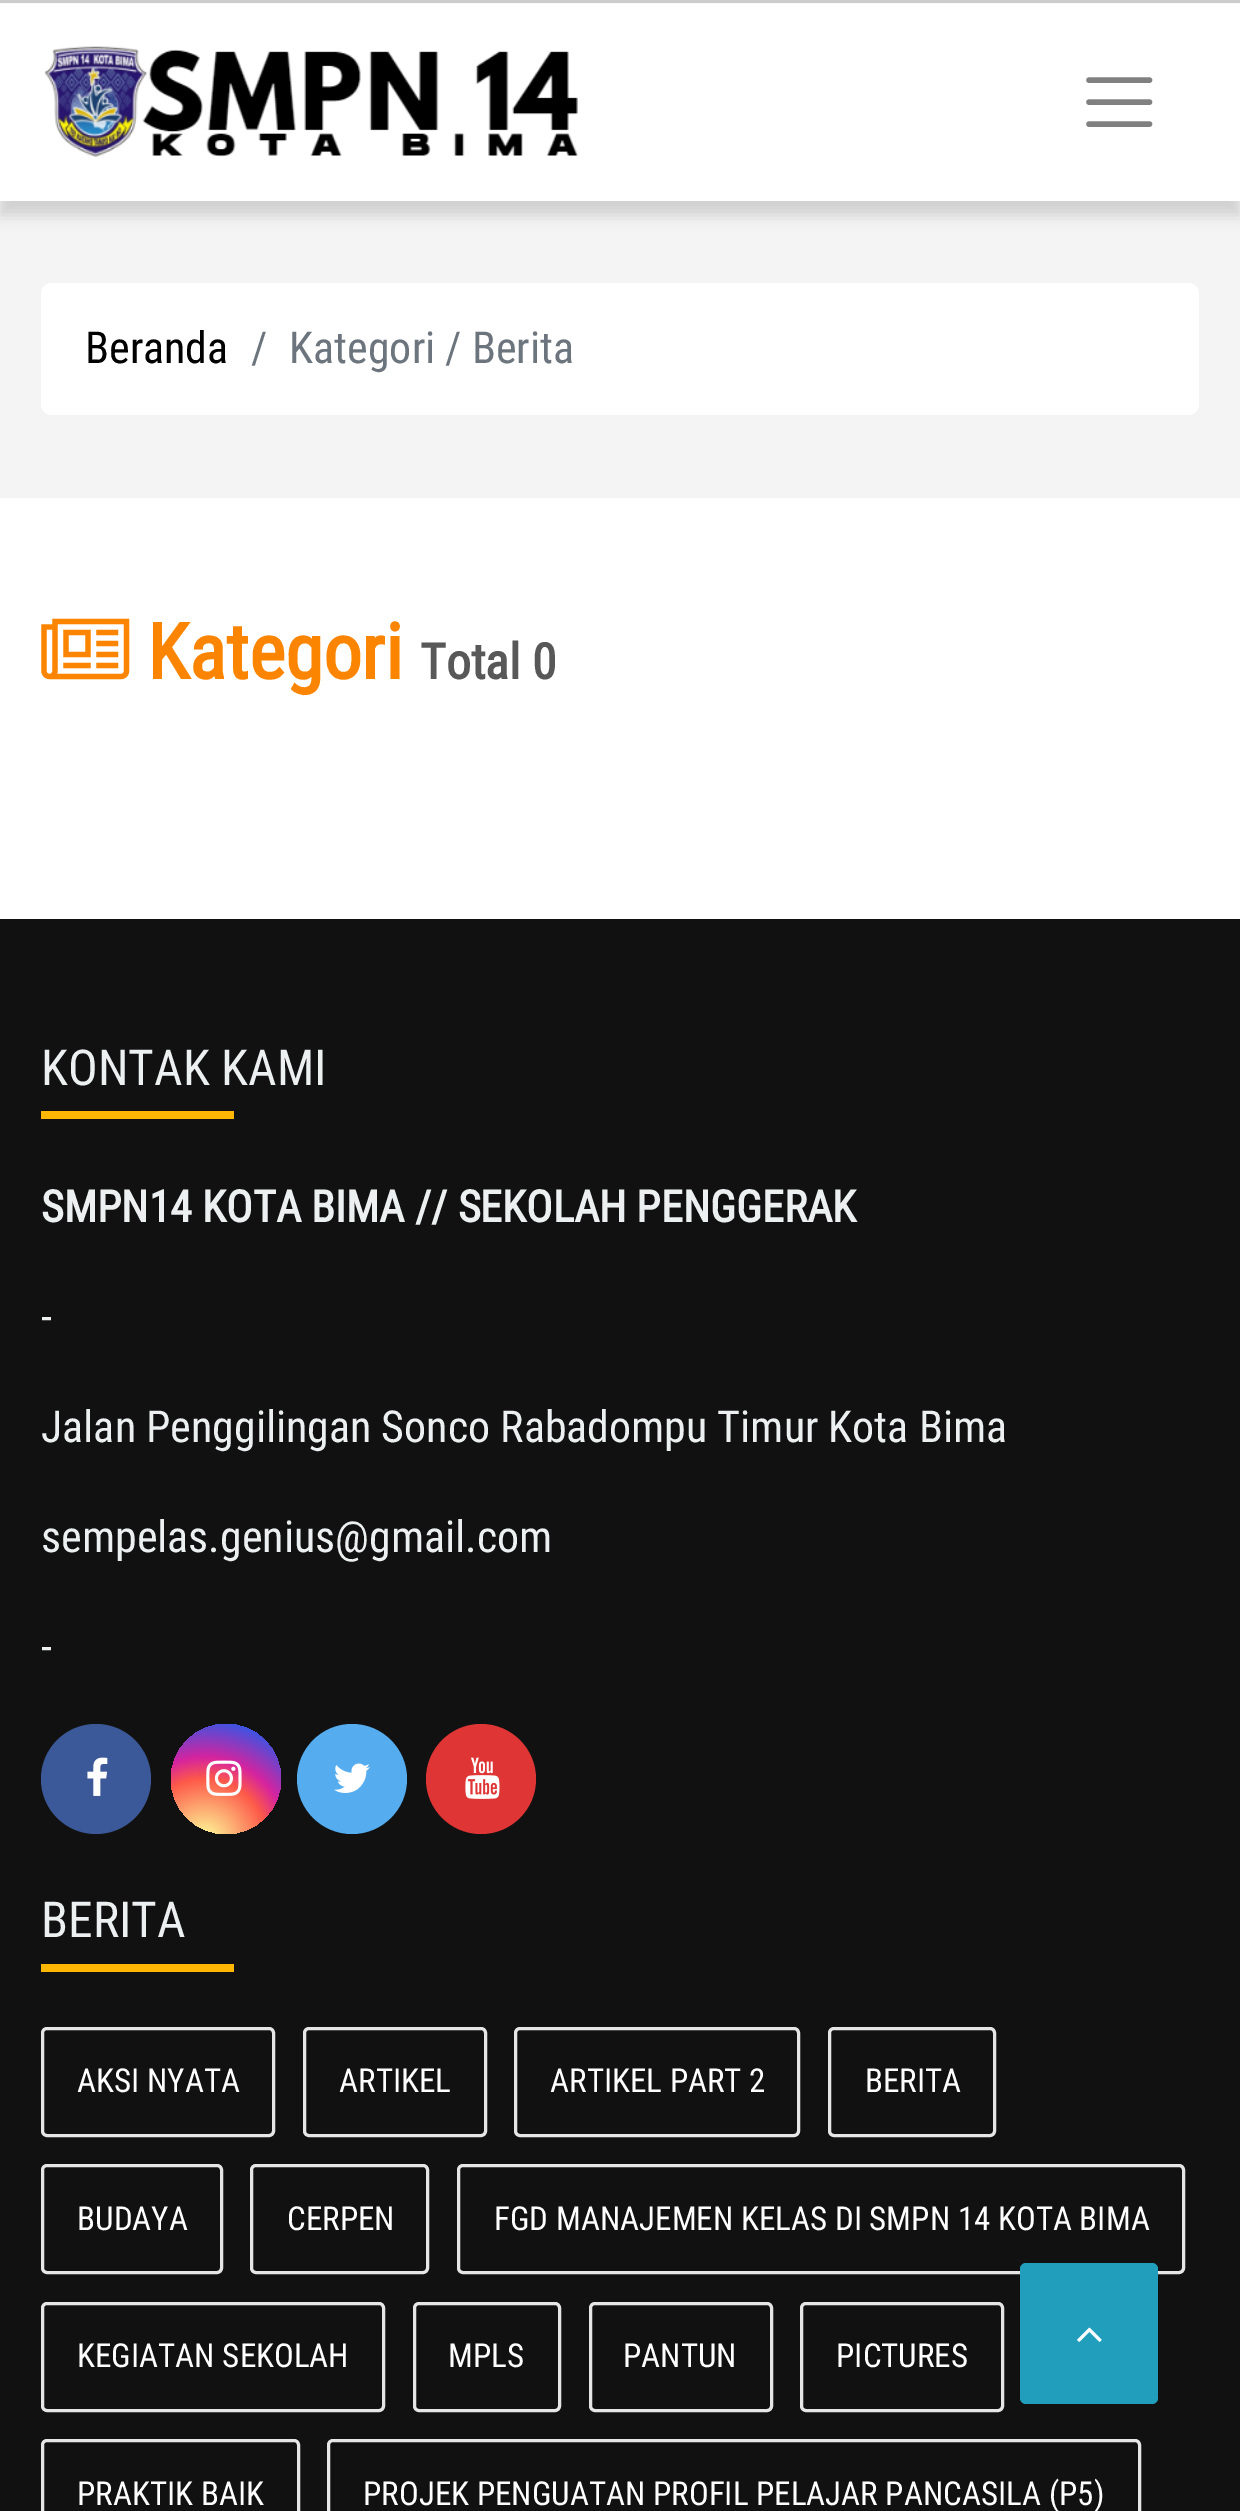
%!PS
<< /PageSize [1240 2511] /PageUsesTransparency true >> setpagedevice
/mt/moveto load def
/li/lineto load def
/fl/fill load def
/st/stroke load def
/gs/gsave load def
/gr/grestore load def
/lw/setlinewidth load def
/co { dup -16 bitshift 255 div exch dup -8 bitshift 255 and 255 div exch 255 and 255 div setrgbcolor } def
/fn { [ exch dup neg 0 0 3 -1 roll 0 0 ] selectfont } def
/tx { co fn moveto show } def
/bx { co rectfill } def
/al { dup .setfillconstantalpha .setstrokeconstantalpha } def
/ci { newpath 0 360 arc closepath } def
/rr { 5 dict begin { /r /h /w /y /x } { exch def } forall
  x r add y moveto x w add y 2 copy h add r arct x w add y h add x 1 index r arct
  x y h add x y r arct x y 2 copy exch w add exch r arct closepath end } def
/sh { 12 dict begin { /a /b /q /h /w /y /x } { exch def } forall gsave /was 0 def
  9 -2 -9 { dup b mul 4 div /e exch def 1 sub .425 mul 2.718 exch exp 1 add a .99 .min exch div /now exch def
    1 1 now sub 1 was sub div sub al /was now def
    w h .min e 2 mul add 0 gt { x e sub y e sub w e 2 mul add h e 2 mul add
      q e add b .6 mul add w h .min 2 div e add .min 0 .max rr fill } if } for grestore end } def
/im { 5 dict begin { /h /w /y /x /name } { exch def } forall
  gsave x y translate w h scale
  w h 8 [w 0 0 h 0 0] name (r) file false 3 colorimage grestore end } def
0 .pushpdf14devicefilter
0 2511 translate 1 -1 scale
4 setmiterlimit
0 0 1240 2511 16#FFFFFF bx
0 201 1240 297 16#F4F4F4 bx
16#000000 co
0 14 1240 201 0 7 .15 sh
0 4 1240 197 16#FFFFFF bx
0 0 1240 3 16#CCCCCC bx
(media/1.raw) 44 46 534 111 im
16#808080 co
5.5 lw
1 setlinecap
1089 80 mt 1149.5 80 li 1089 102 mt 1149.5 102 li 1089 124 mt 1149.5 124 li st
16#FFFFFF co
41 283 1158 132 11 rr fl
(media/2.raw) 41 618 89 62 im
0 919 1240 1592 16#111111 bx
41 1111 193 8 16#FFB703 bx
16#3B5999 co
96 1779 55 ci fl
(media/3.raw) 87 1757 21 39 im
gs 226 1779 55 ci clip newpath 204 1842 translate 141 141 scale
<< /ShadingType 3 /ColorSpace /DeviceRGB /Coords [0 0 0 0 0 1] /Extend [true true] /Function << /FunctionType 3 /Domain [0 1] /Functions [<< /FunctionType 2 /Domain [0 1] /C0 [.992 .957 .592] /C1 [.992 .957 .592] /N 1 >> << /FunctionType 2 /Domain [0 1] /C0 [.992 .957 .592] /C1 [.992 .349 .286] /N 1 >> << /FunctionType 2 /Domain [0 1] /C0 [.992 .349 .286] /C1 [.839 .141 .624] /N 1 >> << /FunctionType 2 /Domain [0 1] /C0 [.839 .141 .624] /C1 [.157 .353 .922] /N 1 >> << /FunctionType 2 /Domain [0 1] /C0 [.157 .353 .922] /C1 [.157 .353 .922] /N 1 >>] /Bounds [.05 .45 .6 .9] /Encode [0 1 0 1 0 1 0 1 0 1] >> >> shfill gr
(media/4.raw) 206 1760 36 36 im
16#55ACEE co
352 1779 55 ci fl
(media/5.raw) 334 1763 36 30 im
16#DF3535 co
481 1779 55 ci fl
(media/6.raw) 465 1757 35 42 im
41 1964 193 8 16#FFB703 bx
16#E6E6E6 co
3 lw
0 setlinecap
42.5 2028.5 231 107 4.5 rr st
304.5 2028.5 181 107 4.5 rr st
515.5 2028.5 283 107 4.5 rr st
829.5 2028.5 165 107 4.5 rr st
42.5 2165.5 179 107 4.5 rr st
251.5 2165.5 176 107 4.5 rr st
458.5 2165.5 725 107 4.5 rr st
42.5 2303.5 341 107 4.5 rr st
414.5 2303.5 145 107 4.5 rr st
590.5 2303.5 181 107 4.5 rr st
801.5 2303.5 201 107 4.5 rr st
42.5 2440.5 256 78 4.5 rr st
328.5 2440.5 811 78 4.5 rr st
16#219EBC co
1020 2263 138 141 6 rr fl
(media/7.raw) 1077 2327 25 15 im
(Beranda) 85 363 /RobotoCondensed-Regular 44 16#000000 tx
(/) 251 363 /RobotoCondensed-Regular 44 16#6C757D tx
(Kategori / Berita) 289 363 /RobotoCondensed-Regular 44 16#6C757D tx
(Kategori) 147 679 /RobotoCondensed-Bold 77 16#FB8500 tx
(Total 0) 420 679 /RobotoCondensed-Bold 49.5 16#585858 tx
(KONTAK KAMI) 41 1085 /RobotoCondensed-Regular 49.5 16#ECF0F1 tx
(SMPN14 KOTA BIMA // SEKOLAH PENGGERAK) 41 1222 /RobotoCondensed-Bold 44 16#ECF0F1 tx
(-) 41 1332 /RobotoCondensed-Regular 44 16#ECF0F1 tx
(Jalan Penggilingan Sonco Rabadompu Timur Kota Bima) 41 1442 /RobotoCondensed-Regular 44 16#ECF0F1 tx
(sempelas.genius@gmail.com) 41 1552 /RobotoCondensed-Regular 44 16#ECF0F1 tx
(-) 41 1662 /RobotoCondensed-Regular 44 16#ECF0F1 tx
(BERITA) 41 1937 /RobotoCondensed-Regular 49.5 16#ECF0F1 tx
(AKSI NYATA) 77 2092 /RobotoCondensed-Regular 33 16#FFFFFF tx
(ARTIKEL) 339 2092 /RobotoCondensed-Regular 33 16#FFFFFF tx
(ARTIKEL PART 2) 550 2092 /RobotoCondensed-Regular 33 16#FFFFFF tx
(BERITA) 865 2092 /RobotoCondensed-Regular 33 16#FFFFFF tx
(BUDAYA) 77 2230 /RobotoCondensed-Regular 33 16#FFFFFF tx
(CERPEN) 287 2230 /RobotoCondensed-Regular 33 16#FFFFFF tx
(FGD MANAJEMEN KELAS DI SMPN 14 KOTA BIMA) 494 2230 /RobotoCondensed-Regular 33 16#FFFFFF tx
(KEGIATAN SEKOLAH) 77 2367 /RobotoCondensed-Regular 33 16#FFFFFF tx
(MPLS) 448 2367 /RobotoCondensed-Regular 33 16#FFFFFF tx
(PANTUN) 623 2367 /RobotoCondensed-Regular 33 16#FFFFFF tx
(PICTURES) 836 2367 /RobotoCondensed-Regular 33 16#FFFFFF tx
(PRAKTIK BAIK) 77 2505 /RobotoCondensed-Regular 33 16#FFFFFF tx
(PROJEK PENGUATAN PROFIL PELAJAR PANCASILA \(P5\)) 363 2505 /RobotoCondensed-Regular 33 16#FFFFFF tx
.poppdf14devicefilter showpage
